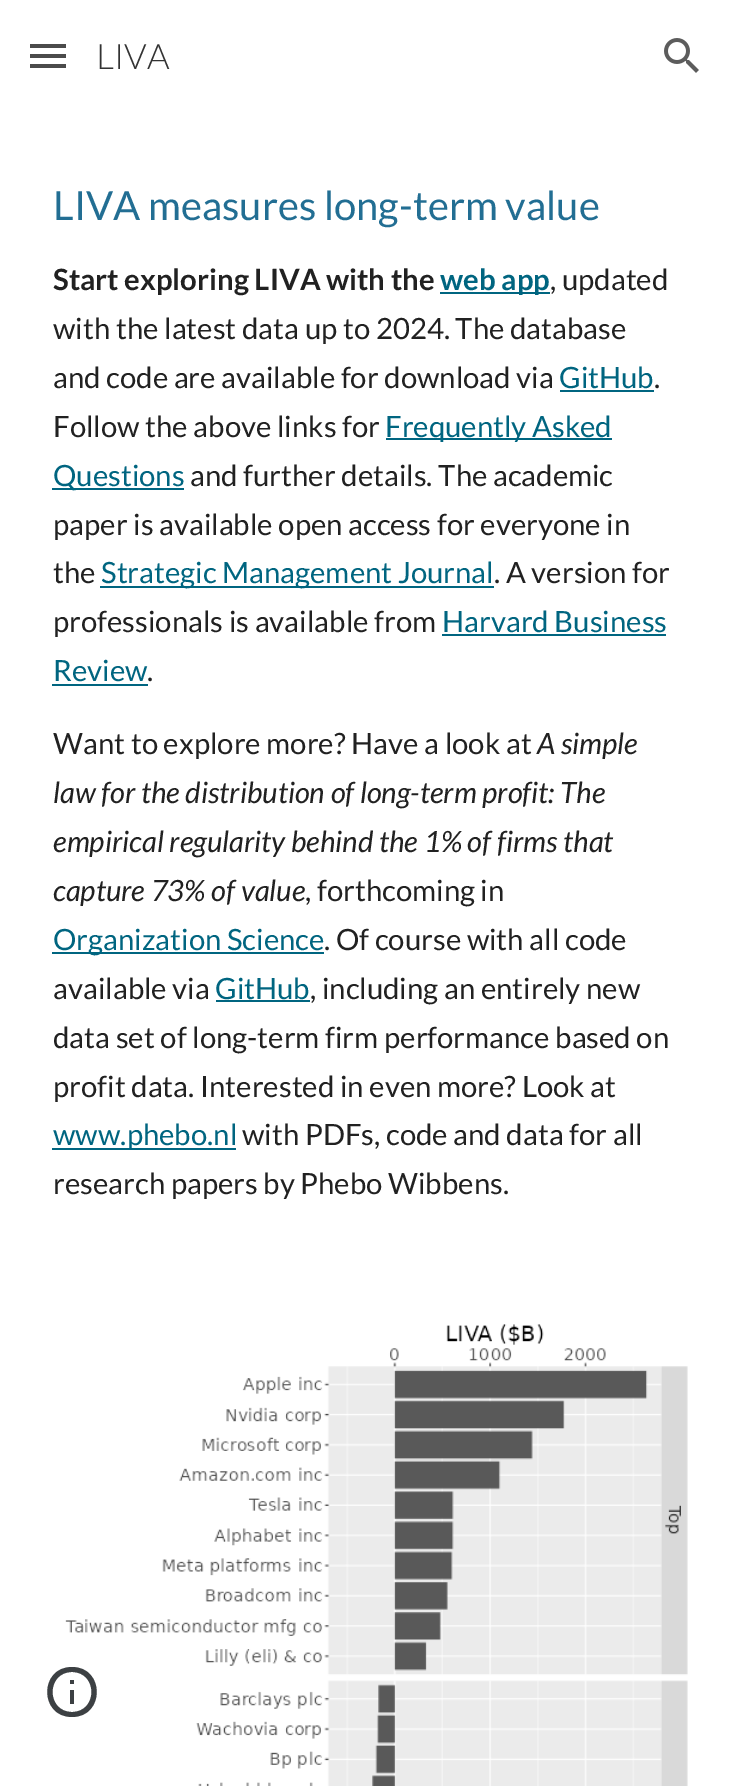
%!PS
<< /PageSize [730 1786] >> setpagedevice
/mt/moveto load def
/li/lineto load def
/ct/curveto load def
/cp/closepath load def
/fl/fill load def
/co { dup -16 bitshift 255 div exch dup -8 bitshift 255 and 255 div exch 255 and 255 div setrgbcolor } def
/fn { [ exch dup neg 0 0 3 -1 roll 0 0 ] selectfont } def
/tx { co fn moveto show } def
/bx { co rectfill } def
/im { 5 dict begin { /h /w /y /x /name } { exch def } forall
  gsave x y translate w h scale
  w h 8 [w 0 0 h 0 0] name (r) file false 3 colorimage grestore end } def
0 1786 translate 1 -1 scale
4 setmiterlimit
0 0 730 1786 16#FFFFFF bx
30 44 36 4 16#4B4B4B bx
30 54 36 4 16#4B4B4B bx
30 64 36 4 16#4B4B4B bx
(media/1.raw) 664 38 35 35 im
440 292 110 2 16#006580 bx
560 390 94 2 16#006580 bx
386 438 226 2 16#006580 bx
52 488 132 2 16#006580 bx
100 586 394 2 16#006580 bx
442 634 224 2 16#006580 bx
52 684 96 2 16#006580 bx
52 952 272 2 16#006580 bx
216 1000 94 2 16#006580 bx
52 1148 184 2 16#006580 bx
(media/2.raw) 65 1324 623 462 im
16#3C4043 co
70 1704 mt 74 1704 li 74 1690 li 70 1690 li cp 72 1667 mt 39 1667 39 1717 72 1717 ct 105 1717 105 1667 72 1667 ct cp 72 1712 mt 46 1712 46 1672 72 1672 ct 98 1672 98 1712 72 1712 ct cp 70 1684 mt 74 1684 li 74 1680 li 70 1680 li cp fl
(LIVA) 96 69 /Lato-Light 35 16#333333 tx
(LIVA measures long-term value) 53 220 /Lato-Regular 40 16#226E93 tx
(Start exploring LIVA with the) 53 290 /Lato-Bold 29.3 16#212121 tx
(web app) 440 290 /Lato-Bold 29.3 16#006580 tx
(, updated) 550 290 /Lato-Regular 29.3 16#212121 tx
(with the latest data up to 2024. The database) 53 339 /Lato-Regular 29.3 16#212121 tx
(and code are available for download via) 53 388 /Lato-Regular 29.3 16#212121 tx
(GitHub) 559 388 /Lato-Regular 29.3 16#006580 tx
(.) 654 388 /Lato-Regular 29.3 16#212121 tx
(Follow the above links for) 53 437 /Lato-Regular 29.3 16#212121 tx
(Frequently Asked) 385 437 /Lato-Regular 29.3 16#006580 tx
(Questions) 53 486 /Lato-Regular 29.3 16#006580 tx
(and further details. The academic) 190 486 /Lato-Regular 29.3 16#212121 tx
(paper is available open access for everyone in) 53 535 /Lato-Regular 29.3 16#212121 tx
(the) 53 583 /Lato-Regular 29.3 16#212121 tx
(Strategic Management Journal) 101 583 /Lato-Regular 29.3 16#006580 tx
(. A version for) 494 583 /Lato-Regular 29.3 16#212121 tx
(professionals is available from) 53 632 /Lato-Regular 29.3 16#212121 tx
(Harvard Business) 442 632 /Lato-Regular 29.3 16#006580 tx
(Review) 53 681 /Lato-Regular 29.3 16#006580 tx
(.) 147 681 /Lato-Regular 29.3 16#212121 tx
(Want to explore more? Have a look at) 53 754 /Lato-Regular 29.3 16#212121 tx
(A simple) 537 754 /Lato-Italic 29.3 16#212121 tx
(law for the distribution of long-term profit: The) 53 803 /Lato-Italic 29.3 16#212121 tx
(empirical regularity behind the 1% of firms that) 53 852 /Lato-Italic 29.3 16#212121 tx
(capture 73% of value) 53 901 /Lato-Italic 29.3 16#212121 tx
(, forthcoming in) 305 901 /Lato-Regular 29.3 16#212121 tx
(Organization Science) 53 950 /Lato-Regular 29.3 16#006580 tx
(. Of course with all code) 324 950 /Lato-Regular 29.3 16#212121 tx
(available via) 53 999 /Lato-Regular 29.3 16#212121 tx
(GitHub) 215 999 /Lato-Regular 29.3 16#006580 tx
(, including an entirely new) 310 999 /Lato-Regular 29.3 16#212121 tx
(data set of long-term firm performance based on) 53 1048 /Lato-Regular 29.3 16#212121 tx
(profit data. Interested in even more? Look at) 53 1097 /Lato-Regular 29.3 16#212121 tx
(www.phebo.nl) 53 1145 /Lato-Regular 29.3 16#006580 tx
(with PDFs, code and data for all) 242 1145 /Lato-Regular 29.3 16#212121 tx
(research papers by Phebo Wibbens.) 53 1194 /Lato-Regular 29.3 16#212121 tx
showpage
